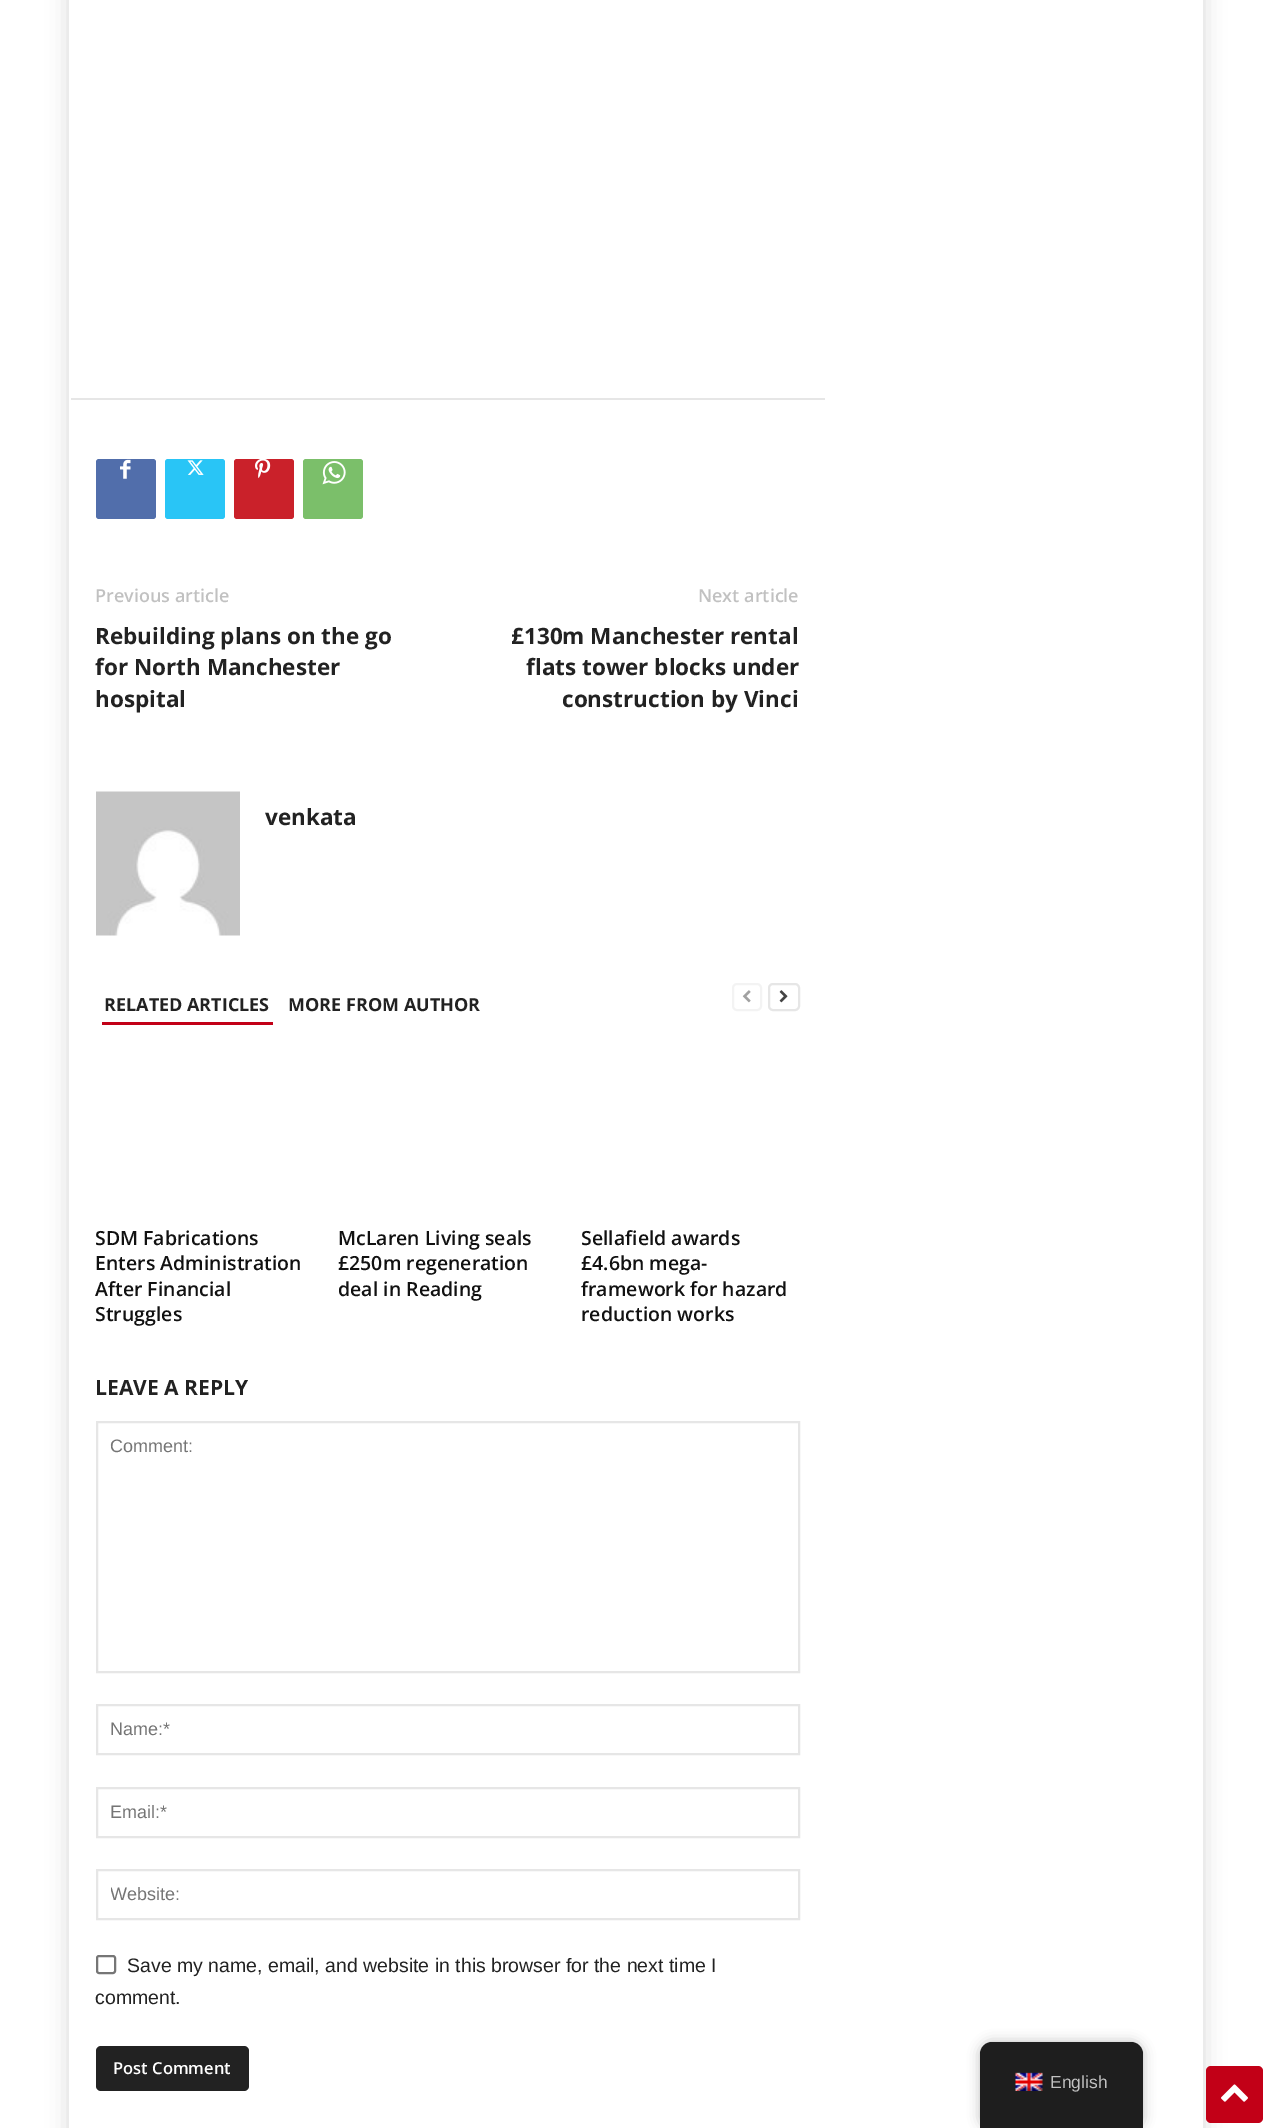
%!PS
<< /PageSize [1270 2128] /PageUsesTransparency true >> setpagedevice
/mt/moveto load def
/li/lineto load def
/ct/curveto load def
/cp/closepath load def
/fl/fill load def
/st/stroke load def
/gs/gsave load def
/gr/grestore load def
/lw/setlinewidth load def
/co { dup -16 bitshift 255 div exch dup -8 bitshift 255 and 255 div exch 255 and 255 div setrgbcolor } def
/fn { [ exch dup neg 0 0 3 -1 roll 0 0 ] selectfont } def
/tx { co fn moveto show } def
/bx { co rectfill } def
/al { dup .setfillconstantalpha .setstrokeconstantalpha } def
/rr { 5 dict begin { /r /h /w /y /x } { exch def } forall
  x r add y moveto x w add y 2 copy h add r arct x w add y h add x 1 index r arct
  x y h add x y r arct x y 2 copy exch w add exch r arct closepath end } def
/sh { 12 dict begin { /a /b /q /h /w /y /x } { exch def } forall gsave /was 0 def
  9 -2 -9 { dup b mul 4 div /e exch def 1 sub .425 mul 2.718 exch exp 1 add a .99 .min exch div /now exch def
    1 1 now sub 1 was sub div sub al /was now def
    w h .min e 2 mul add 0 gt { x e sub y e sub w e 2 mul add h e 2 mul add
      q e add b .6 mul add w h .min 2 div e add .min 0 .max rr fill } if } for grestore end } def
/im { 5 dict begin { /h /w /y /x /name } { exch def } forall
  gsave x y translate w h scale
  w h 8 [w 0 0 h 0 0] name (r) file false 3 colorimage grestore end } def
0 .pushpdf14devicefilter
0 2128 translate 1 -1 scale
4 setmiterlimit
0 0 1270 2128 16#FFFFFF bx
gs
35 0 mt 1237 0 li 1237 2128 li 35 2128 li cp 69 -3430 mt 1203 -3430 li 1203 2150 li 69 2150 li cp eoclip newpath
16#000000 co
69 -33 1134 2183 0 11 .15 sh
gr
71 398 754 2 16#E6E6E6 bx
16#516EAB co
96 459 60 60 3 rr fl
(media/1.raw) 120 459 11 20 im
16#29C5F6 co
165 459 60 60 3 rr fl
(media/2.raw) 187 460 17 15 im
16#CA212A co
234 459 60 60 3 rr fl
(media/3.raw) 255 459 16 20 im
16#7BBF6A co
303 459 60 60 3 rr fl
(media/4.raw) 322 461 24 24 im
(media/5.raw) 96 791 144 145 im
102 1022 171 3 16#C20017 bx
16#F3F3F3 co
2 lw
733 984 28 26 4 rr st
(media/6.raw) 742 990 9 13 im
16#E6E6E6 co
769 984 30 26 4 rr st
(media/7.raw) 779 990 9 13 im
97 1422 702 250 rectstroke
97 1705 702 49 rectstroke
97 1788 702 49 rectstroke
97 1870 702 49 rectstroke
16#767676 co
97 1956 18 17 2 rr st
16#222222 co
96 2046 153 45 5 rr fl
16#000000 co
980 2042 163 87 12 6 .25 sh
16#1E1E1E co
992 2042 mt 1131 2042 li 1137.5 2042 1143 2047.5 1143 2054 ct 1143 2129 li 980 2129 li 980 2054 li 980 2047.5 985.5 2042 992 2042 ct cp fl
(media/8.raw) 1015 2072 28 19 im
16#C20017 co
1206 2066 57 57 5 rr fl
(media/9.raw) 1221 2084 27 18 im
(Previous article) 95 602 /OpenSans-SemiBold 18 16#C1C1C1 tx
(Rebuilding plans on the go) 95 644 /OpenSans-Bold 22.5 16#222222 tx
(for North Manchester) 95 675 /OpenSans-Bold 22.5 16#222222 tx
(hospital) 95 707 /OpenSans-Bold 22.5 16#222222 tx
(Next article) 698 602 /OpenSans-SemiBold 18 16#C1C1C1 tx
(£130m Manchester rental) 511 644 /OpenSans-Bold 22.5 16#222222 tx
(flats tower blocks under) 526 675 /OpenSans-Bold 22.5 16#222222 tx
(construction by Vinci) 562 707 /OpenSans-Bold 22.5 16#222222 tx
(venkata) 265 825 /OpenSans-Bold 22.5 16#222222 tx
(RELATED ARTICLES) 104 1011 /OpenSans-Bold 18 16#222222 tx
(MORE FROM AUTHOR) 288 1011 /OpenSans-Bold 18 16#222222 tx
(SDM Fabrications) 95 1245 /OpenSans-SemiBold 19.5 16#111111 tx
(Enters Administration) 95 1270 /OpenSans-SemiBold 19.5 16#111111 tx
(After Financial) 95 1296 /OpenSans-SemiBold 19.5 16#111111 tx
(Struggles) 95 1321 /OpenSans-SemiBold 19.5 16#111111 tx
(McLaren Living seals) 338 1245 /OpenSans-SemiBold 19.5 16#111111 tx
(£250m regeneration) 338 1270 /OpenSans-SemiBold 19.5 16#111111 tx
(deal in Reading) 338 1296 /OpenSans-SemiBold 19.5 16#111111 tx
(Sellafield awards) 581 1245 /OpenSans-SemiBold 19.5 16#111111 tx
(£4.6bn mega-) 581 1270 /OpenSans-SemiBold 19.5 16#111111 tx
(framework for hazard) 581 1296 /OpenSans-SemiBold 19.5 16#111111 tx
(reduction works) 581 1321 /OpenSans-SemiBold 19.5 16#111111 tx
(LEAVE A REPLY) 95 1395 /OpenSans-Bold 21 16#222222 tx
(Comment:) 110 1452 /LiberationSans-Regular 18 16#757575 tx
(Name:*) 110 1735 /LiberationSans-Regular 18 16#757575 tx
(Email:*) 110 1818 /LiberationSans-Regular 18 16#757575 tx
gs
111 1884 674 21 rectclip
(Website:) 110 1900 /LiberationSans-Regular 18 16#757575 tx
gr
(Save my name, email, and website in this browser for the next time I) 127 1972 /LiberationSans-Regular 19.5 16#222222 tx
(comment.) 95 2004 /LiberationSans-Regular 19.5 16#222222 tx
(Post Comment) 113 2074 /OpenSans-SemiBold 16.5 16#FFFFFF tx
(English) 1050 2088 /LiberationSans-Regular 17.5 16#C1C1C1 tx
.poppdf14devicefilter showpage
